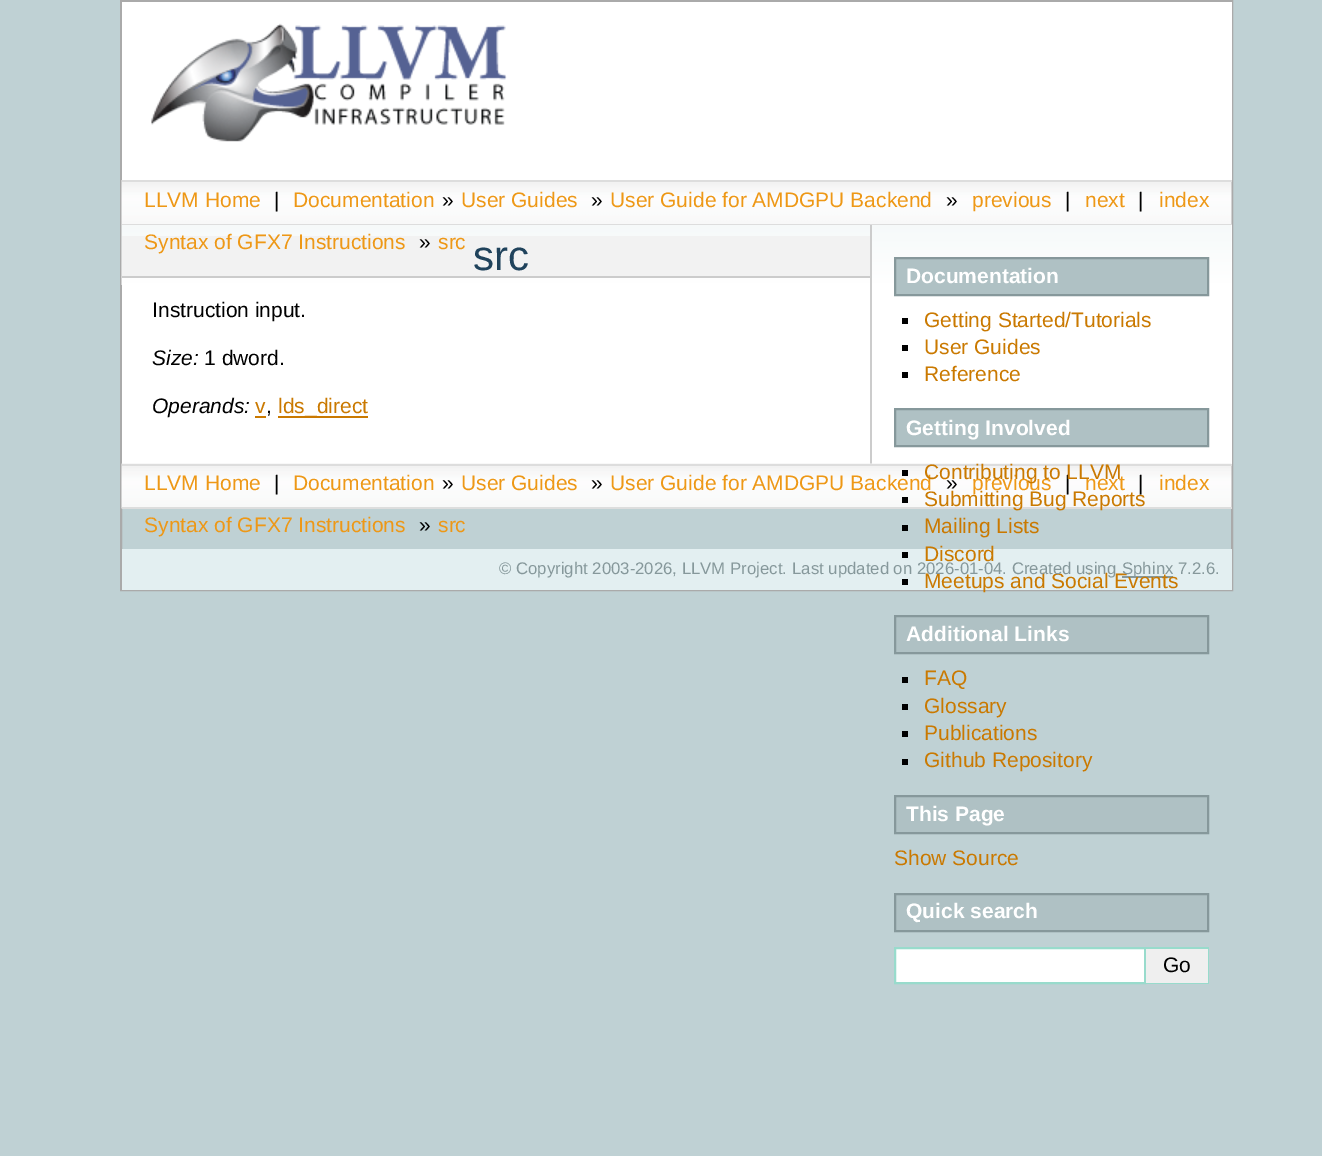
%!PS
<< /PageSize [1322 1156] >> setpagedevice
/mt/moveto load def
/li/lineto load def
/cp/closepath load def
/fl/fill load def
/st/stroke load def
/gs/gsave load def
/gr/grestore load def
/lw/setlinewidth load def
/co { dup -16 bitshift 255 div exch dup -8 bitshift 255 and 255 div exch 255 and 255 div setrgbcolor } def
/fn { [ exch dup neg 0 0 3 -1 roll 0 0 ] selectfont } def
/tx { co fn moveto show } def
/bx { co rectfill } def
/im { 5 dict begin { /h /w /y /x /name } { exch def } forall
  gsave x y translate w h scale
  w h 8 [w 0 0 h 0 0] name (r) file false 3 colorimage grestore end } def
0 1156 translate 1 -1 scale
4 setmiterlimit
0 0 1322 1156 16#BFD1D4 bx
16#AAAAAA co
2 lw
121 1 1111 589 rectstroke
122 2 1110 178 16#FFFFFF bx
(media/1.raw) 151 23 356 119 im
(media/2.raw) 121 180 1111 45 im
122 180 1110 2 16#DDDDDD bx
122 224 1110 1 16#DDDDDD bx
122 225 1110 239 16#FFFFFF bx
(media/3.raw) 121 225 1111 60 im
870 225 2 239 16#CCCCCC bx
122 236 748 40 16#F2F2F2 bx
122 276 748 2 16#CCCCCC bx
255 416 11 2 16#CA7900 bx
278 416 90 2 16#CA7900 bx
16#AFC1C4 co
895 258 mt 1208 258 li 1208 295 li 895 295 li cp gs fl gr
16#86989B co
st
902 318 6 6 16#000000 bx
902 345 6 6 16#000000 bx
902 372 6 6 16#000000 bx
16#AFC1C4 co
895 409 mt 1208 409 li 1208 446 li 895 446 li cp gs fl gr
16#86989B co
st
(media/4.raw) 121 463 1111 46 im
902 497 6 6 16#000000 bx
902 525 6 6 16#000000 bx
122 549 1110 41 16#E3EFF1 bx
902 552 6 6 16#000000 bx
902 579 6 6 16#000000 bx
16#AFC1C4 co
895 616 mt 1208 616 li 1208 653 li 895 653 li cp gs fl gr
16#86989B co
st
902 677 6 6 16#000000 bx
902 704 6 6 16#000000 bx
902 731 6 6 16#000000 bx
902 759 6 6 16#000000 bx
16#AFC1C4 co
895 796 mt 1208 796 li 1208 833 li 895 833 li cp gs fl gr
16#86989B co
st
16#AFC1C4 co
895 894 mt 1208 894 li 1208 931 li 895 931 li cp gs fl gr
16#86989B co
st
16#FFFFFF co
895 948 mt 1145 948 li 1145 983 li 895 983 li cp gs fl gr
16#98DBCC co
st
1146 949 62 34 16#EFEFEF bx
1146 947 63 2 16#98DBCC bx
1208 947 1 37 16#98DBCC bx
1146 983 63 1 16#98DBCC bx
122 464 1110 2 16#DDDDDD bx
122 507 1110 2 16#DDDDDD bx
1122 576 51 2 16#86989B bx
(LLVM Home) 144 207 /LiberationSans-Regular 21 16#EE9816 tx
(|) 274 207 /LiberationSans-Regular 21 16#000000 tx
(Documentation) 293 207 /LiberationSans-Regular 21 16#EE9816 tx
(») 442 207 /LiberationSans-Regular 21 16#000000 tx
(User Guides) 461 207 /LiberationSans-Regular 21 16#EE9816 tx
(») 591 207 /LiberationSans-Regular 21 16#000000 tx
(User Guide for AMDGPU Backend) 610 207 /LiberationSans-Regular 21 16#EE9816 tx
(») 946 207 /LiberationSans-Regular 21 16#000000 tx
(previous) 972 207 /LiberationSans-Regular 21 16#EE9816 tx
(|) 1065 207 /LiberationSans-Regular 21 16#000000 tx
(next) 1085 207 /LiberationSans-Regular 21 16#EE9816 tx
(|) 1138 207 /LiberationSans-Regular 21 16#000000 tx
(index) 1159 207 /LiberationSans-Regular 21 16#EE9816 tx
(Syntax of GFX7 Instructions) 144 249 /LiberationSans-Regular 21 16#EE9816 tx
(») 419 249 /LiberationSans-Regular 21 16#000000 tx
(src) 438 249 /LiberationSans-Regular 21 16#EE9816 tx
(src) 473 270 /LiberationSans-Regular 42 16#20435C tx
(Instruction input.) 152 317 /LiberationSans-Regular 21 16#000000 tx
(Size:) 152 365 /LiberationSans-Italic 21 16#000000 tx
(1 dword.) 204 365 /LiberationSans-Regular 21 16#000000 tx
(Operands:) 152 413 /LiberationSans-Italic 21 16#000000 tx
(v) 255 413 /LiberationSans-Regular 21 16#CA7900 tx
(,) 266 413 /LiberationSans-Regular 21 16#000000 tx
(lds_direct) 278 413 /LiberationSans-Regular 21 16#CA7900 tx
(Documentation) 906 283 /LiberationSans-Bold 21 16#FFFFFF tx
(Getting Started/Tutorials) 924 327 /LiberationSans-Regular 21 16#CA7900 tx
(User Guides) 924 354 /LiberationSans-Regular 21 16#CA7900 tx
(Reference) 924 381 /LiberationSans-Regular 21 16#CA7900 tx
(Getting Involved) 906 435 /LiberationSans-Bold 21 16#FFFFFF tx
(Submitting Bug Reports) 924 506 /LiberationSans-Regular 21 16#CA7900 tx
(Mailing Lists) 924 533 /LiberationSans-Regular 21 16#CA7900 tx
(Discord) 924 561 /LiberationSans-Regular 21 16#CA7900 tx
(Meetups and Social Events) 924 588 /LiberationSans-Regular 21 16#CA7900 tx
(Additional Links) 906 641 /LiberationSans-Bold 21 16#FFFFFF tx
(FAQ) 924 685 /LiberationSans-Regular 21 16#CA7900 tx
(Glossary) 924 713 /LiberationSans-Regular 21 16#CA7900 tx
(Publications) 924 740 /LiberationSans-Regular 21 16#CA7900 tx
(Github Repository) 924 767 /LiberationSans-Regular 21 16#CA7900 tx
(This Page) 906 821 /LiberationSans-Bold 21 16#FFFFFF tx
(Show Source) 894 865 /LiberationSans-Regular 21 16#CA7900 tx
(Quick search) 906 918 /LiberationSans-Bold 21 16#FFFFFF tx
(Go) 1163 972 /LiberationSans-Regular 21 16#000000 tx
(LLVM Home) 144 490 /LiberationSans-Regular 21 16#EE9816 tx
(|) 274 490 /LiberationSans-Regular 21 16#000000 tx
(Documentation) 293 490 /LiberationSans-Regular 21 16#EE9816 tx
(») 442 490 /LiberationSans-Regular 21 16#000000 tx
(User Guides) 461 490 /LiberationSans-Regular 21 16#EE9816 tx
(») 591 490 /LiberationSans-Regular 21 16#000000 tx
(User Guide for AMDGPU Backend) 610 490 /LiberationSans-Regular 21 16#EE9816 tx
902 470 6 6 16#000000 bx
(») 946 490 /LiberationSans-Regular 21 16#000000 tx
(previous) 972 490 /LiberationSans-Regular 21 16#EE9816 tx
(|) 1065 490 /LiberationSans-Regular 21 16#000000 tx
(next) 1085 490 /LiberationSans-Regular 21 16#EE9816 tx
(Contributing to LLVM) 924 479 /LiberationSans-Regular 21 16#CA7900 tx
(|) 1138 490 /LiberationSans-Regular 21 16#000000 tx
(index) 1159 490 /LiberationSans-Regular 21 16#EE9816 tx
(Syntax of GFX7 Instructions) 144 532 /LiberationSans-Regular 21 16#EE9816 tx
(») 419 532 /LiberationSans-Regular 21 16#000000 tx
(src) 438 532 /LiberationSans-Regular 21 16#EE9816 tx
(© Copyright 2003-2026, LLVM Project.) 499 574 /LiberationSans-Regular 16.75 16#86989B tx
(Last updated on 2026-01-04. Created using) 792 574 /LiberationSans-Regular 16.75 16#86989B tx
(Sphinx 7.2.6.) 1122 574 /LiberationSans-Regular 16.75 16#86989B tx
showpage
